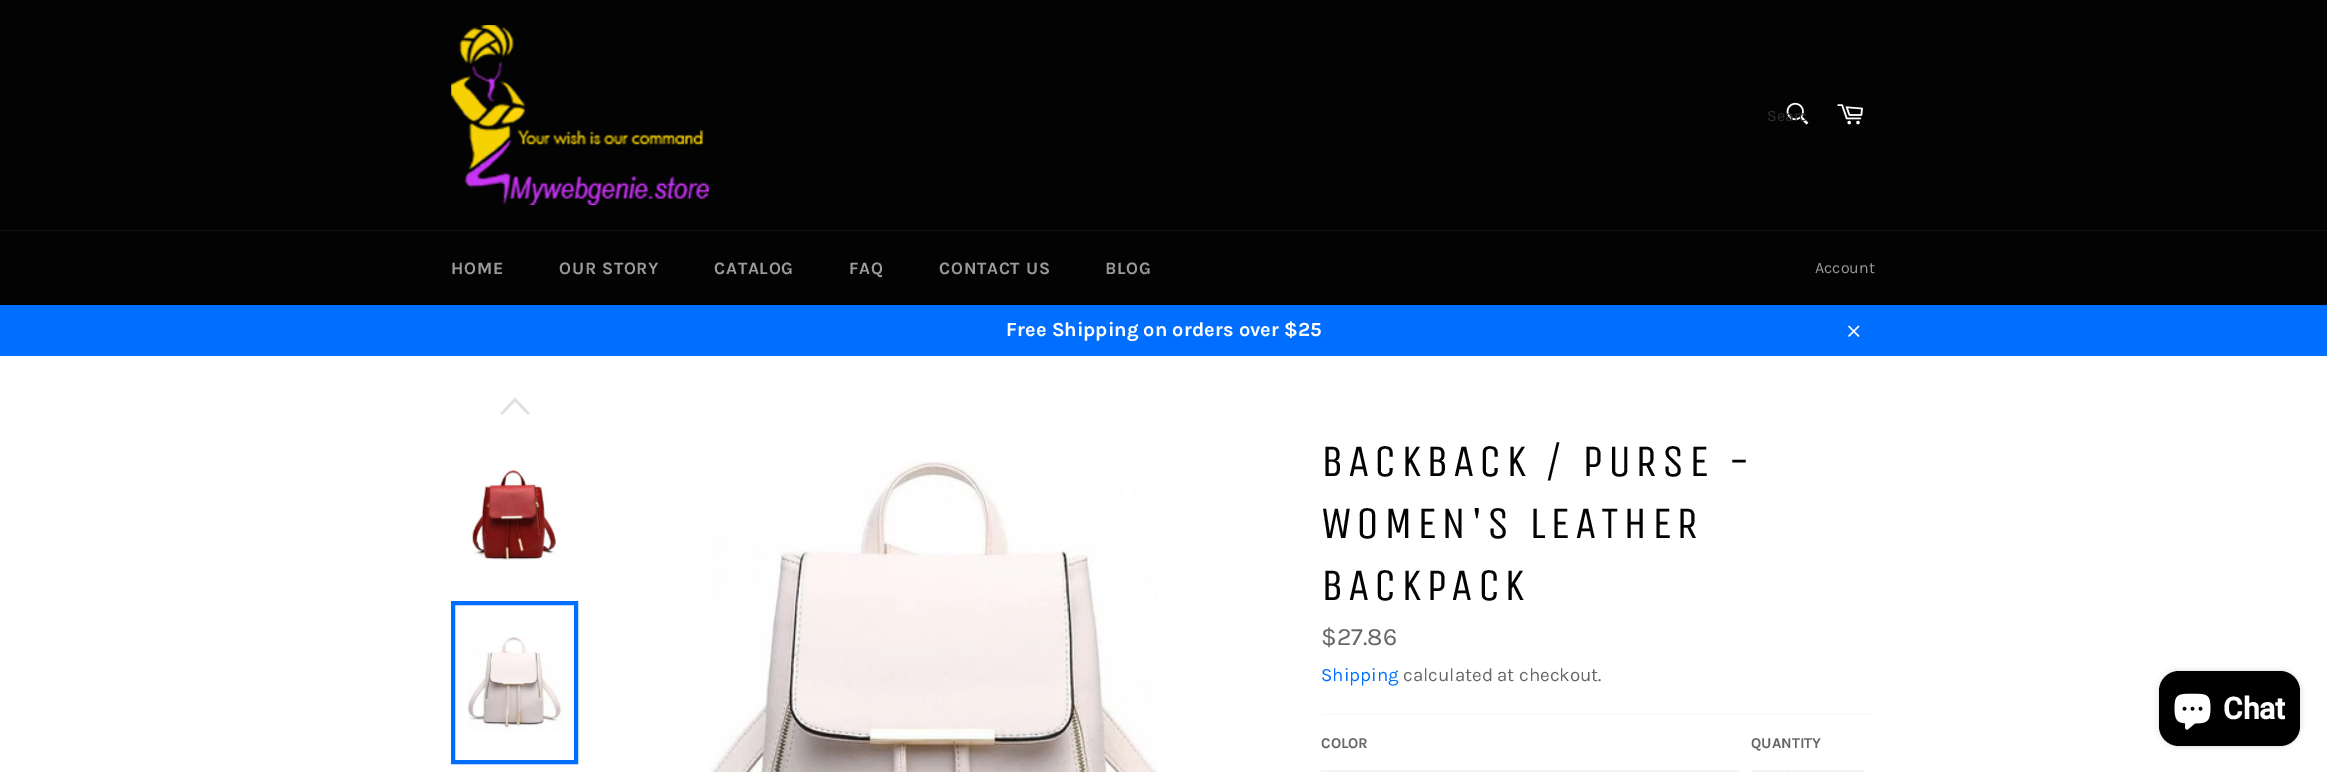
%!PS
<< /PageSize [2327 772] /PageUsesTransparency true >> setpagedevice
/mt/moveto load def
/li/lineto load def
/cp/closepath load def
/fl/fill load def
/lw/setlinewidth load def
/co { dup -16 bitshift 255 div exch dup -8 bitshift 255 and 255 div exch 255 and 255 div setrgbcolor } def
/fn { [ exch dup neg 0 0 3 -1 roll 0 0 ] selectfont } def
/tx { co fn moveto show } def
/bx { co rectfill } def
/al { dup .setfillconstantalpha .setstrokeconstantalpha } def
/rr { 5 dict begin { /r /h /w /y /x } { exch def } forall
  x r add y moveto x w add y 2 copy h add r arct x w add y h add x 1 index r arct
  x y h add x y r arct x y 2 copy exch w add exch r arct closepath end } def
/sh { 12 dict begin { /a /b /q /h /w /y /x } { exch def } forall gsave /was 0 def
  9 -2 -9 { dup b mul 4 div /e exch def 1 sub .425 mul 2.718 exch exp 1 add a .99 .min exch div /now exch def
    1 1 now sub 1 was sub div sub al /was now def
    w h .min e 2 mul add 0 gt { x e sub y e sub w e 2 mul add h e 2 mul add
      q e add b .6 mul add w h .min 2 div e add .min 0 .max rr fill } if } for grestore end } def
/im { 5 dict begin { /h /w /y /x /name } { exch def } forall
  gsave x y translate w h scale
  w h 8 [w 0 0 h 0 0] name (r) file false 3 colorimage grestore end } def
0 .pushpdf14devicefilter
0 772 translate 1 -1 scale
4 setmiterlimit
0 0 2327 772 16#030303 bx
(media/1.raw) 451 25 258 180 im
(media/2.raw) 1786 102 23 23 im
(media/3.raw) 1837 104 26 21 im
0 230 2327 1 16#101010 bx
0 305 2327 51 16#006EFF bx
(media/4.raw) 1848 325 12 12 im
0 356 2327 416 16#FFFFFF bx
16#E0E0E0 co
528 415 mt 529.5 413 li 515 397.5 li 500.5 413 li 502 415 li 515 401.5 li cp fl
(media/5.raw) 469 469 88 92 im
(media/6.raw) 467 637 96 94 im
16#006EFF co
4 lw
453 603 123 159 rectstroke
(media/7.raw) 709 461 449 311 im
1321 714 555 1 16#F7F7F7 bx
1321 770 418 2 16#F4F4F4 bx
1751 770 113 2 16#F4F4F4 bx
1788 770 1 2 16#E7E7E7 bx
1826 770 1 2 16#E7E7E7 bx
16#000000 co
2159 671 141 75 20 3 .15 sh
2159 671 141 75 20 rr fl
(media/8.raw) 2174 693 37 37 im
(Searc) 1767 121 /Karla-Regular 16 16#2E2E2E tx
/Karla-Bold 17.5 fn
16#9A9A9A co
451 274 mt .75 0 (HOME) ashow
559 274 mt .75 0 (OUR STORY) ashow
714 274 mt .75 0 (CATALOG) ashow
849 274 mt .75 0 (FAQ) ashow
939 274 mt .75 0 (CONTACT US) ashow
1105 274 mt .75 0 (BLOG) ashow
(Account) 1815 273 /Karla-Regular 16 16#9A9A9A tx
(Free Shipping on orders over $25) 1006 336 /Karla-Bold 20 16#FFFFFF tx
/UnicaOne-Regular 45 fn
16#030303 co
1321 476 mt 4.5 0 (BACKBACK / PURSE -) ashow
1321 538 mt 4.5 0 (WOMEN'S LEATHER) ashow
1321 600 mt 4.5 0 (BACKPACK) ashow
($27.86) 1321 645 /Karla-Regular 25 16#666666 tx
(Shipping) 1321 681 /Karla-Regular 18.75 16#006EFF tx
(calculated at checkout.) 1403 681 /Karla-Regular 18.75 16#666666 tx
(COLOR) 1321 748 /Karla-Bold 15 16#666666 tx
(QUANTITY) 1751 748 /Karla-Bold 15 16#666666 tx
(Chat) 2223 719 /Roboto-Bold 30 16#FFFFFF tx
.poppdf14devicefilter showpage
